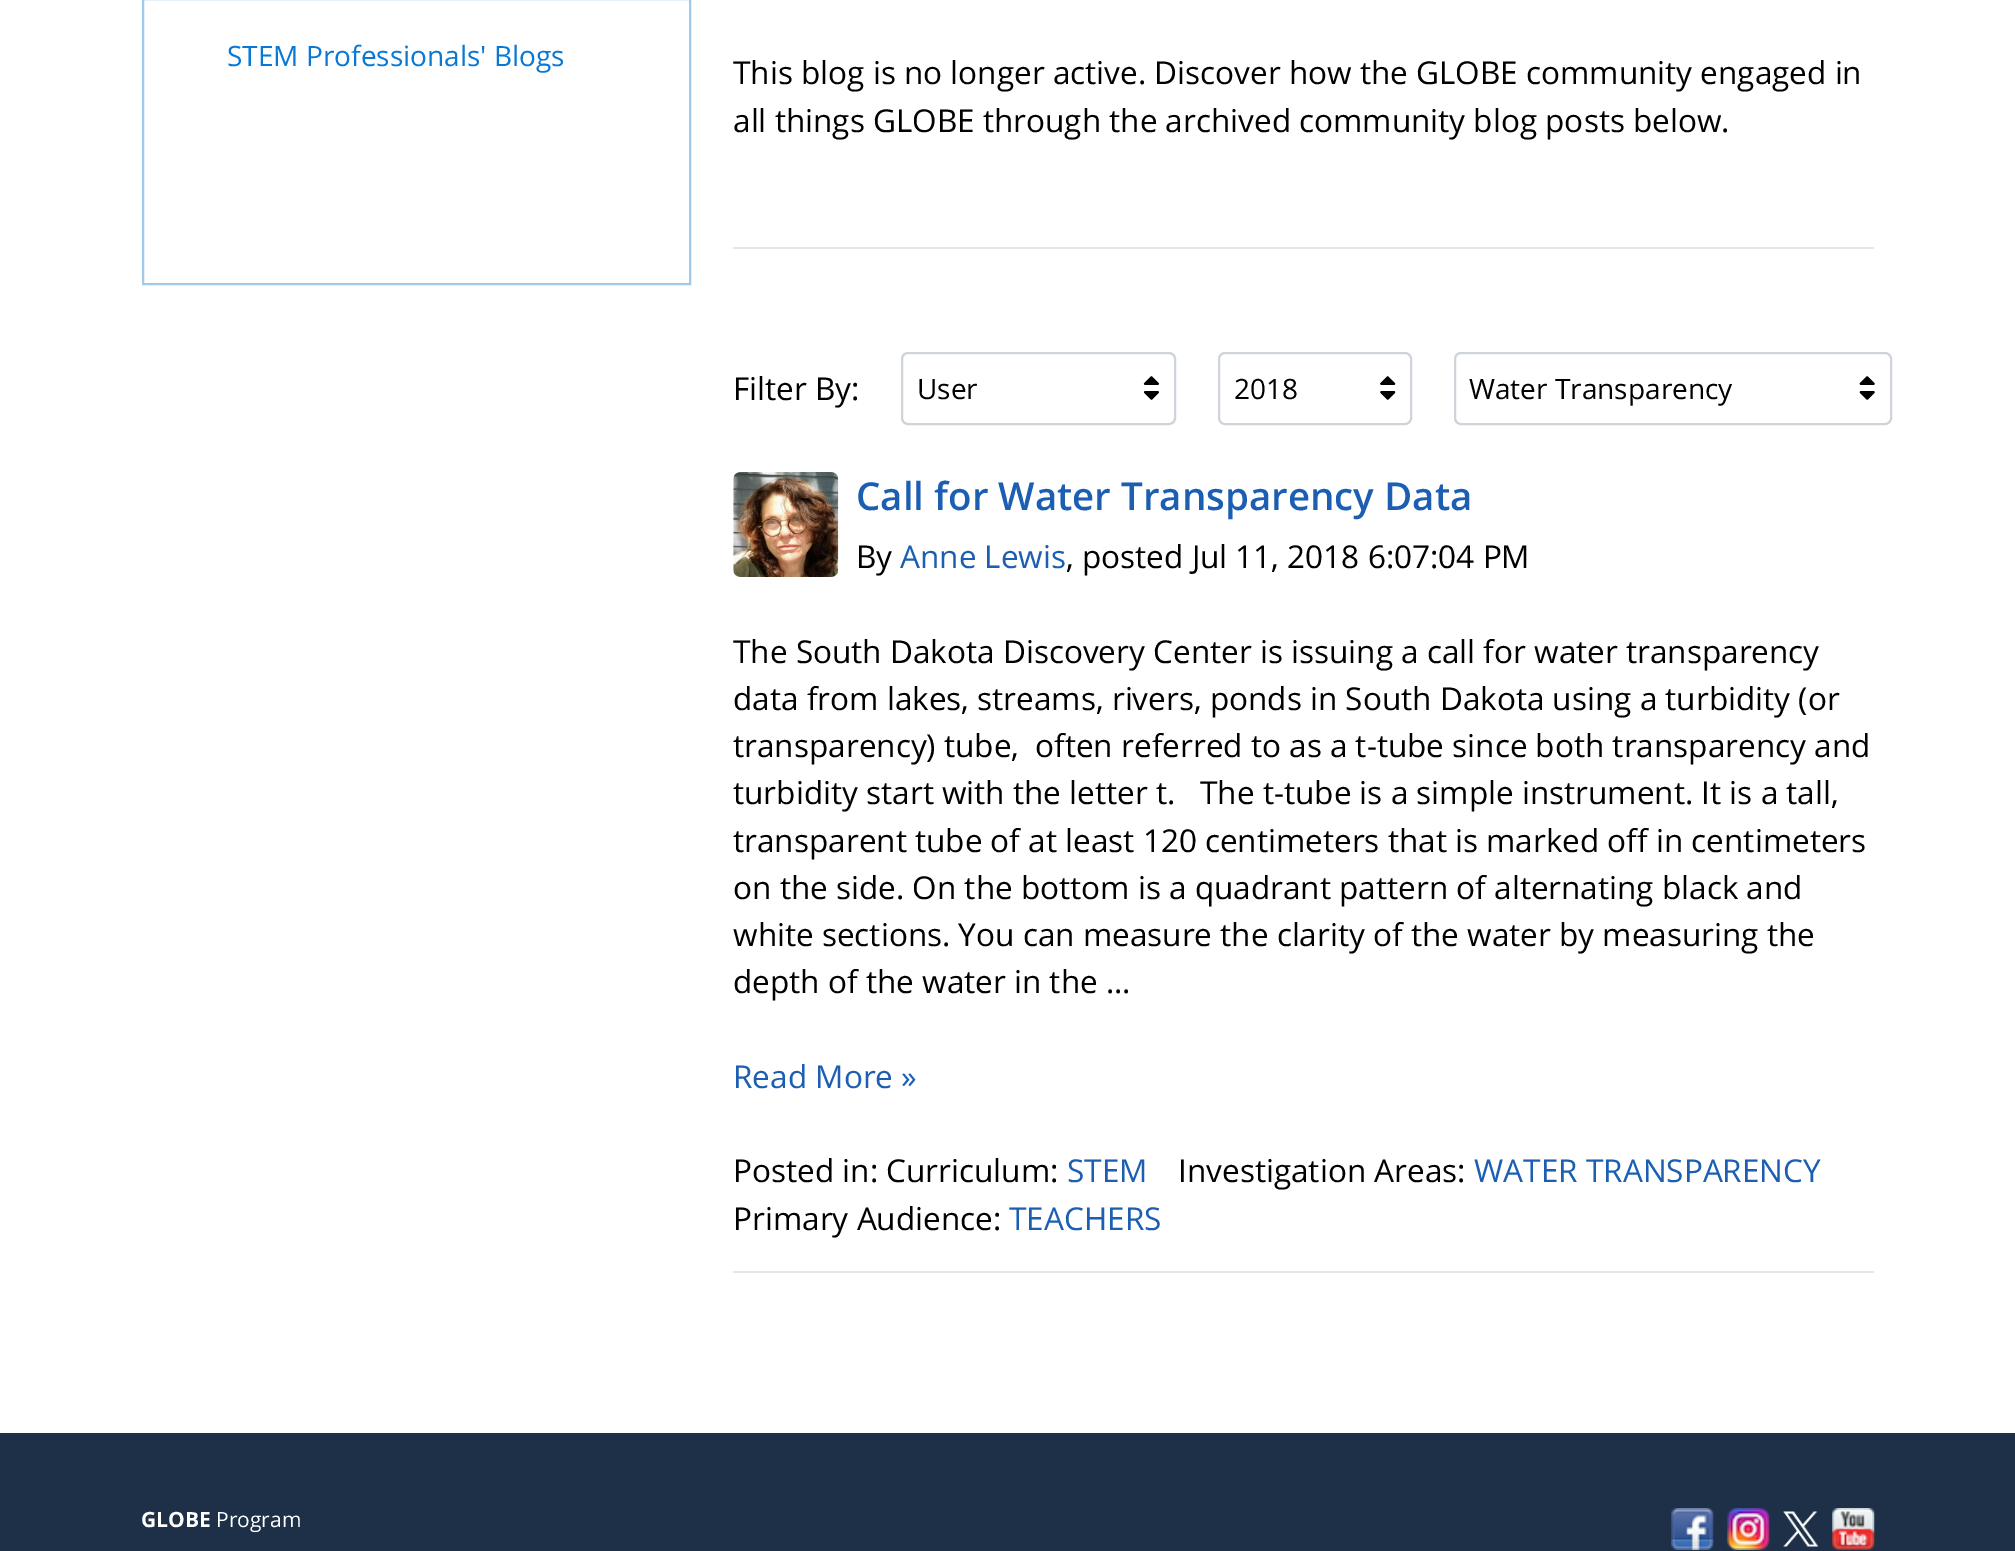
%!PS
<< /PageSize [2015 1551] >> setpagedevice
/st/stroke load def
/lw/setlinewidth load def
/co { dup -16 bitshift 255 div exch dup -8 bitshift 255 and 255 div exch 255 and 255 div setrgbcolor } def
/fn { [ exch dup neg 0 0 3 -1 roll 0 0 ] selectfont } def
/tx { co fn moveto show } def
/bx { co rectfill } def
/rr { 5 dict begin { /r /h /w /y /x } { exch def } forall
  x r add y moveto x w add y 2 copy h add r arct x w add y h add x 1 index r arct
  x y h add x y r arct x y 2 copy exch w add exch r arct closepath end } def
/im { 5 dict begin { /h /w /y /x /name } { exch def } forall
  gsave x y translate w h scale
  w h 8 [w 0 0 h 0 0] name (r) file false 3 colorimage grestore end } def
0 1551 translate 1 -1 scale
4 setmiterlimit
0 0 2015 1551 16#FFFFFF bx
16#A1CAEA co
2 lw
143 -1 547 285 rectstroke
733 247 1141 2 16#E6E6E6 bx
16#CED4DA co
902 353 273 71 6 rr st
(media/1.raw) 1143 376 16 24 im
1219 353 192 71 6 rr st
(media/2.raw) 1380 376 16 24 im
1455 353 436 71 6 rr st
(media/3.raw) 1859 376 16 24 im
(media/4.raw) 733 472 106 105 im
733 1271 1141 2 16#E6E6E6 bx
0 1433 2015 118 16#1E3048 bx
(media/5.raw) 1671 1508 43 42 im
(media/6.raw) 1727 1508 43 42 im
(media/7.raw) 1783 1511 36 36 im
(media/8.raw) 1832 1508 43 42 im
(STEM Professionals' Blogs) 227 66 /OpenSans-Regular 28 16#0778D6 tx
(This blog is no longer active. Discover how the GLOBE community engaged in) 733 84 /OpenSans-Regular 31.5 16#000000 tx
(all things GLOBE through the archived community blog posts below.) 733 132 /OpenSans-Regular 31.5 16#000000 tx
(Filter By:) 733 400 /OpenSans-Regular 31.5 16#000000 tx
(User) 917 399 /OpenSans-Regular 28 16#000000 tx
(2018) 1234 399 /OpenSans-Regular 28 16#000000 tx
(Water Transparency) 1469 399 /OpenSans-Regular 28 16#000000 tx
(Call for Water Transparency Data) 856 510 /OpenSans-SemiBold 38.5 16#1B5EB2 tx
(By) 856 568 /OpenSans-Regular 31.5 16#000000 tx
(Anne Lewis) 900 568 /OpenSans-Regular 31.5 16#1B5EB2 tx
(, posted Jul 11, 2018 6:07:04 PM) 1066 568 /OpenSans-Regular 31.5 16#000000 tx
(The South Dakota Discovery Center is issuing a call for water transparency) 733 663 /OpenSans-Regular 31.5 16#000000 tx
(data from lakes, streams, rivers, ponds in South Dakota using a turbidity \(or) 733 710 /OpenSans-Regular 31.5 16#000000 tx
(transparency\) tube,) 733 757 /OpenSans-Regular 31.5 16#000000 tx
(often referred to as a t-tube since both transparency and) 1035 757 /OpenSans-Regular 31.5 16#000000 tx
(turbidity start with the letter t.) 733 804 /OpenSans-Regular 31.5 16#000000 tx
(The t-tube is a simple instrument. It is a tall,) 1200 804 /OpenSans-Regular 31.5 16#000000 tx
(transparent tube of at least 120 centimeters that is marked off in centimeters) 733 852 /OpenSans-Regular 31.5 16#000000 tx
(on the side. On the bottom is a quadrant pattern of alternating black and) 733 899 /OpenSans-Regular 31.5 16#000000 tx
(white sections. You can measure the clarity of the water by measuring the) 733 946 /OpenSans-Regular 31.5 16#000000 tx
(depth of the water in the ...) 733 993 /OpenSans-Regular 31.5 16#000000 tx
(Read More ») 733 1088 /OpenSans-Regular 31.5 16#1B5EB2 tx
(Posted in: Curriculum:) 733 1182 /OpenSans-Regular 31.5 16#000000 tx
(STEM) 1067 1182 /OpenSans-Regular 31.5 16#1B5EB2 tx
(Investigation Areas:) 1178 1182 /OpenSans-Regular 31.5 16#000000 tx
(WATER TRANSPARENCY) 1474 1182 /OpenSans-Regular 31.5 16#1B5EB2 tx
(Primary Audience:) 733 1230 /OpenSans-Regular 31.5 16#000000 tx
(TEACHERS) 1009 1230 /OpenSans-Regular 31.5 16#1B5EB2 tx
(GLOBE) 141 1527 /OpenSans-Bold 21 16#FFFFFF tx
(Program) 216 1527 /OpenSans-Regular 21 16#FFFFFF tx
showpage
